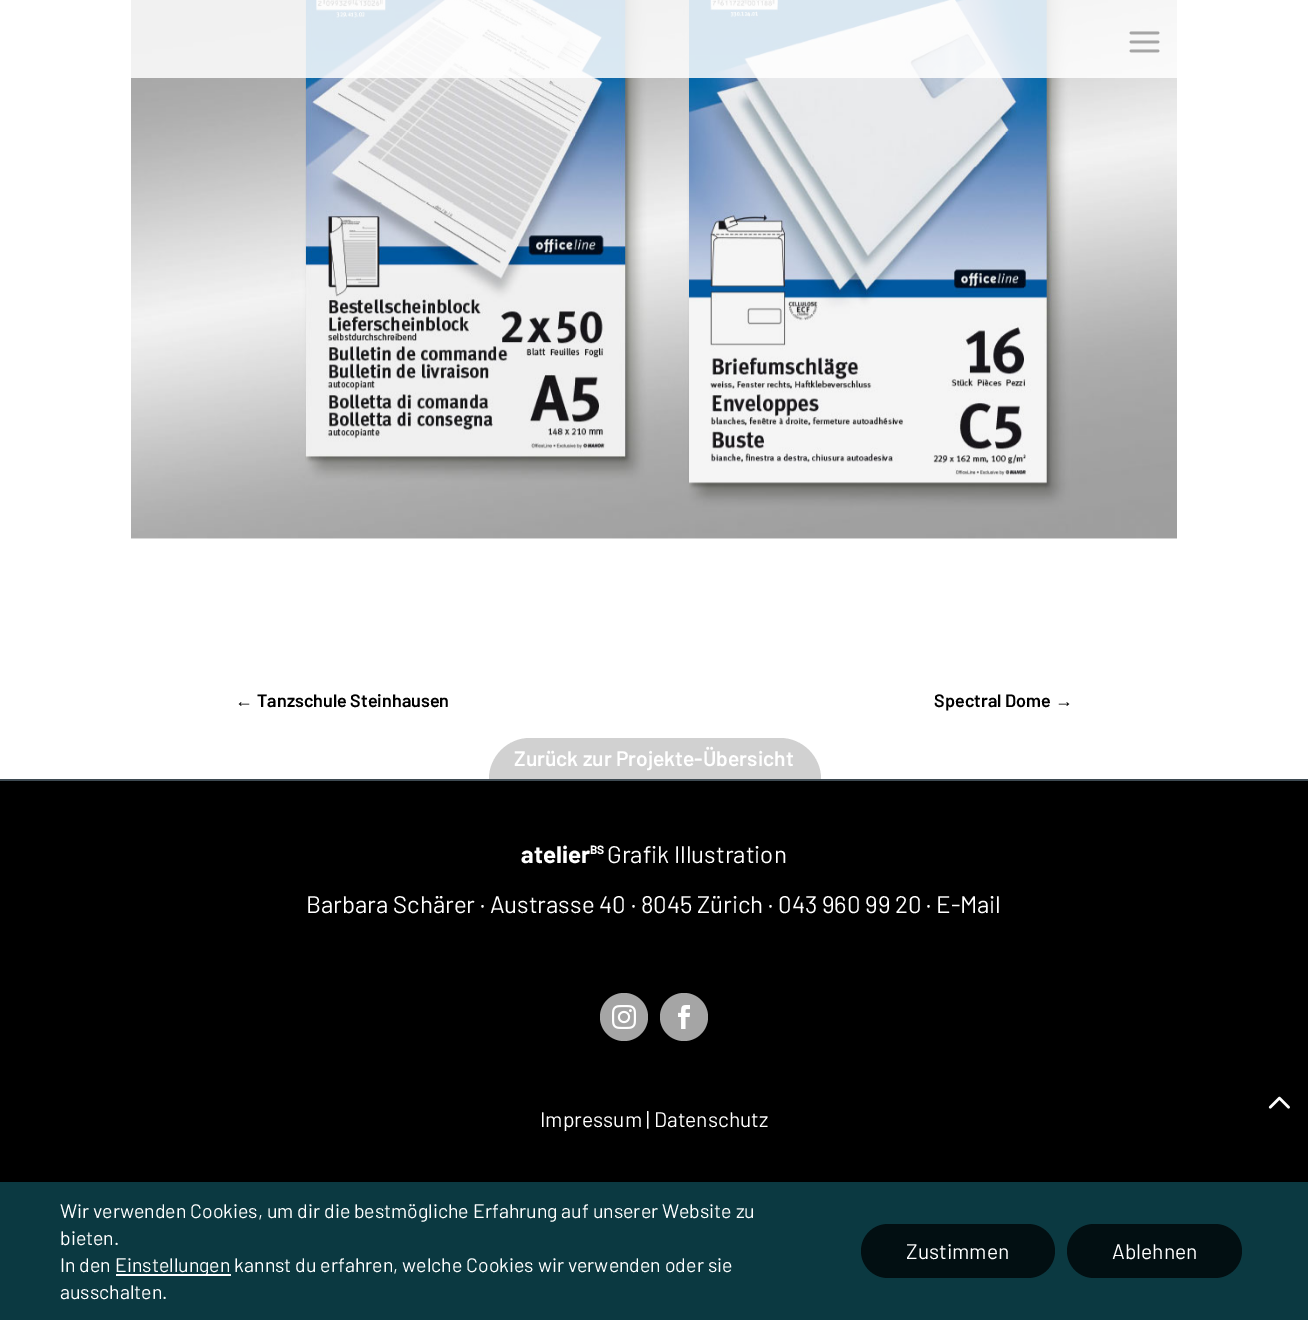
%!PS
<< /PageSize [1308 1320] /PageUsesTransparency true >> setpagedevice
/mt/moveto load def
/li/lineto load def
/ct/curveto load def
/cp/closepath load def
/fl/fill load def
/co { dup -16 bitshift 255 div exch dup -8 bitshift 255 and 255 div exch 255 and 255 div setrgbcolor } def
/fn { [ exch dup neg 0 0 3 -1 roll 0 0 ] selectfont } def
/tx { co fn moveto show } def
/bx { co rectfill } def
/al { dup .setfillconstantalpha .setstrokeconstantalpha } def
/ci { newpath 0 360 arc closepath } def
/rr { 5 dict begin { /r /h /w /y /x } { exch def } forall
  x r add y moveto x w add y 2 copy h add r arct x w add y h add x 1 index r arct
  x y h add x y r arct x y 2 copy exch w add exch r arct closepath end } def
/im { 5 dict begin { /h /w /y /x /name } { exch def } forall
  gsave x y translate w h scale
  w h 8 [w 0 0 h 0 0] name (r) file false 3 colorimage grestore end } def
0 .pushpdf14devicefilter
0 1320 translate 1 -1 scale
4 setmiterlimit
0 0 1308 1320 16#FFFFFF bx
(media/2.raw) 131 0 1046 539 im
0.85 al
131 0 1046 78 16#FFFFFF bx
1 al
(media/1.raw) 1129 31 31 22 im
16#D1D1D1 co
530 738 mt 780 738 li 802.5 738 821 756.5 821 779 ct 489 779 li 489 756.5 507.5 738 530 738 ct cp fl
0 781 1308 401 16#000000 bx
0 779 1308 2 16#3E4A52 bx
16#A5A5A5 co
624 1017 24 ci fl
(media/3.raw) 612 1005 24 24 im
684 1017 24 ci fl
(media/4.raw) 678 1005 12 24 im
(media/5.raw) 1268 1096 22 13 im
0 1182 1308 138 16#0B3941 bx
116 1274 115 2 16#FFFFFF bx
16#020F12 co
861 1224 194 54 27 rr fl
1067 1224 175 54 27 rr fl
(←) 235 707 /LiberationSerif-Bold 18 16#000000 tx
(Tanzschule Steinhausen) 257 707 /Barlow-SemiBold 18 16#000000 tx
(Spectral Dome) 934 707 /Barlow-SemiBold 18 16#000000 tx
(→) 1055 707 /LiberationSerif-Bold 18 16#000000 tx
(Zurück zur Projekte-Übersicht) 514 766 /Barlow-SemiBold 21 16#FFFFFF tx
(atelier) 521 863 /Barlow-Bold 24 16#FFFFFF tx
(BS) 590 854 /Barlow-Bold 12 16#FFFFFF tx
(Grafik Illustration) 607 863 /Barlow-Regular 24 16#FFFFFF tx
(Barbara Schärer · Austrasse 40 · 8045 Zürich · 043 960 99 20 · E-Mail) 306 913 /Barlow-Regular 24 16#FFFFFF tx
(Impressum | Datenschutz) 540 1127 /Barlow-Regular 21 16#FFFFFF tx
(Wir verwenden Cookies, um dir die bestmögliche Erfahrung auf unserer Website zu) 60 1218 /Barlow-Regular 19.5 16#FFFFFF tx
(bieten.) 60 1245 /Barlow-Regular 19.5 16#FFFFFF tx
(In den) 60 1272 /Barlow-Regular 19.5 16#FFFFFF tx
(Einstellungen kannst du erfahren, welche Cookies wir verwenden oder sie) 115 1272 /Barlow-Regular 19.5 16#FFFFFF tx
(ausschalten.) 60 1299 /Barlow-Regular 19.5 16#FFFFFF tx
(Zustimmen) 906 1259 /Barlow-Regular 21 16#FFFFFF tx
(Ablehnen) 1112 1259 /Barlow-Regular 21 16#FFFFFF tx
.poppdf14devicefilter showpage
